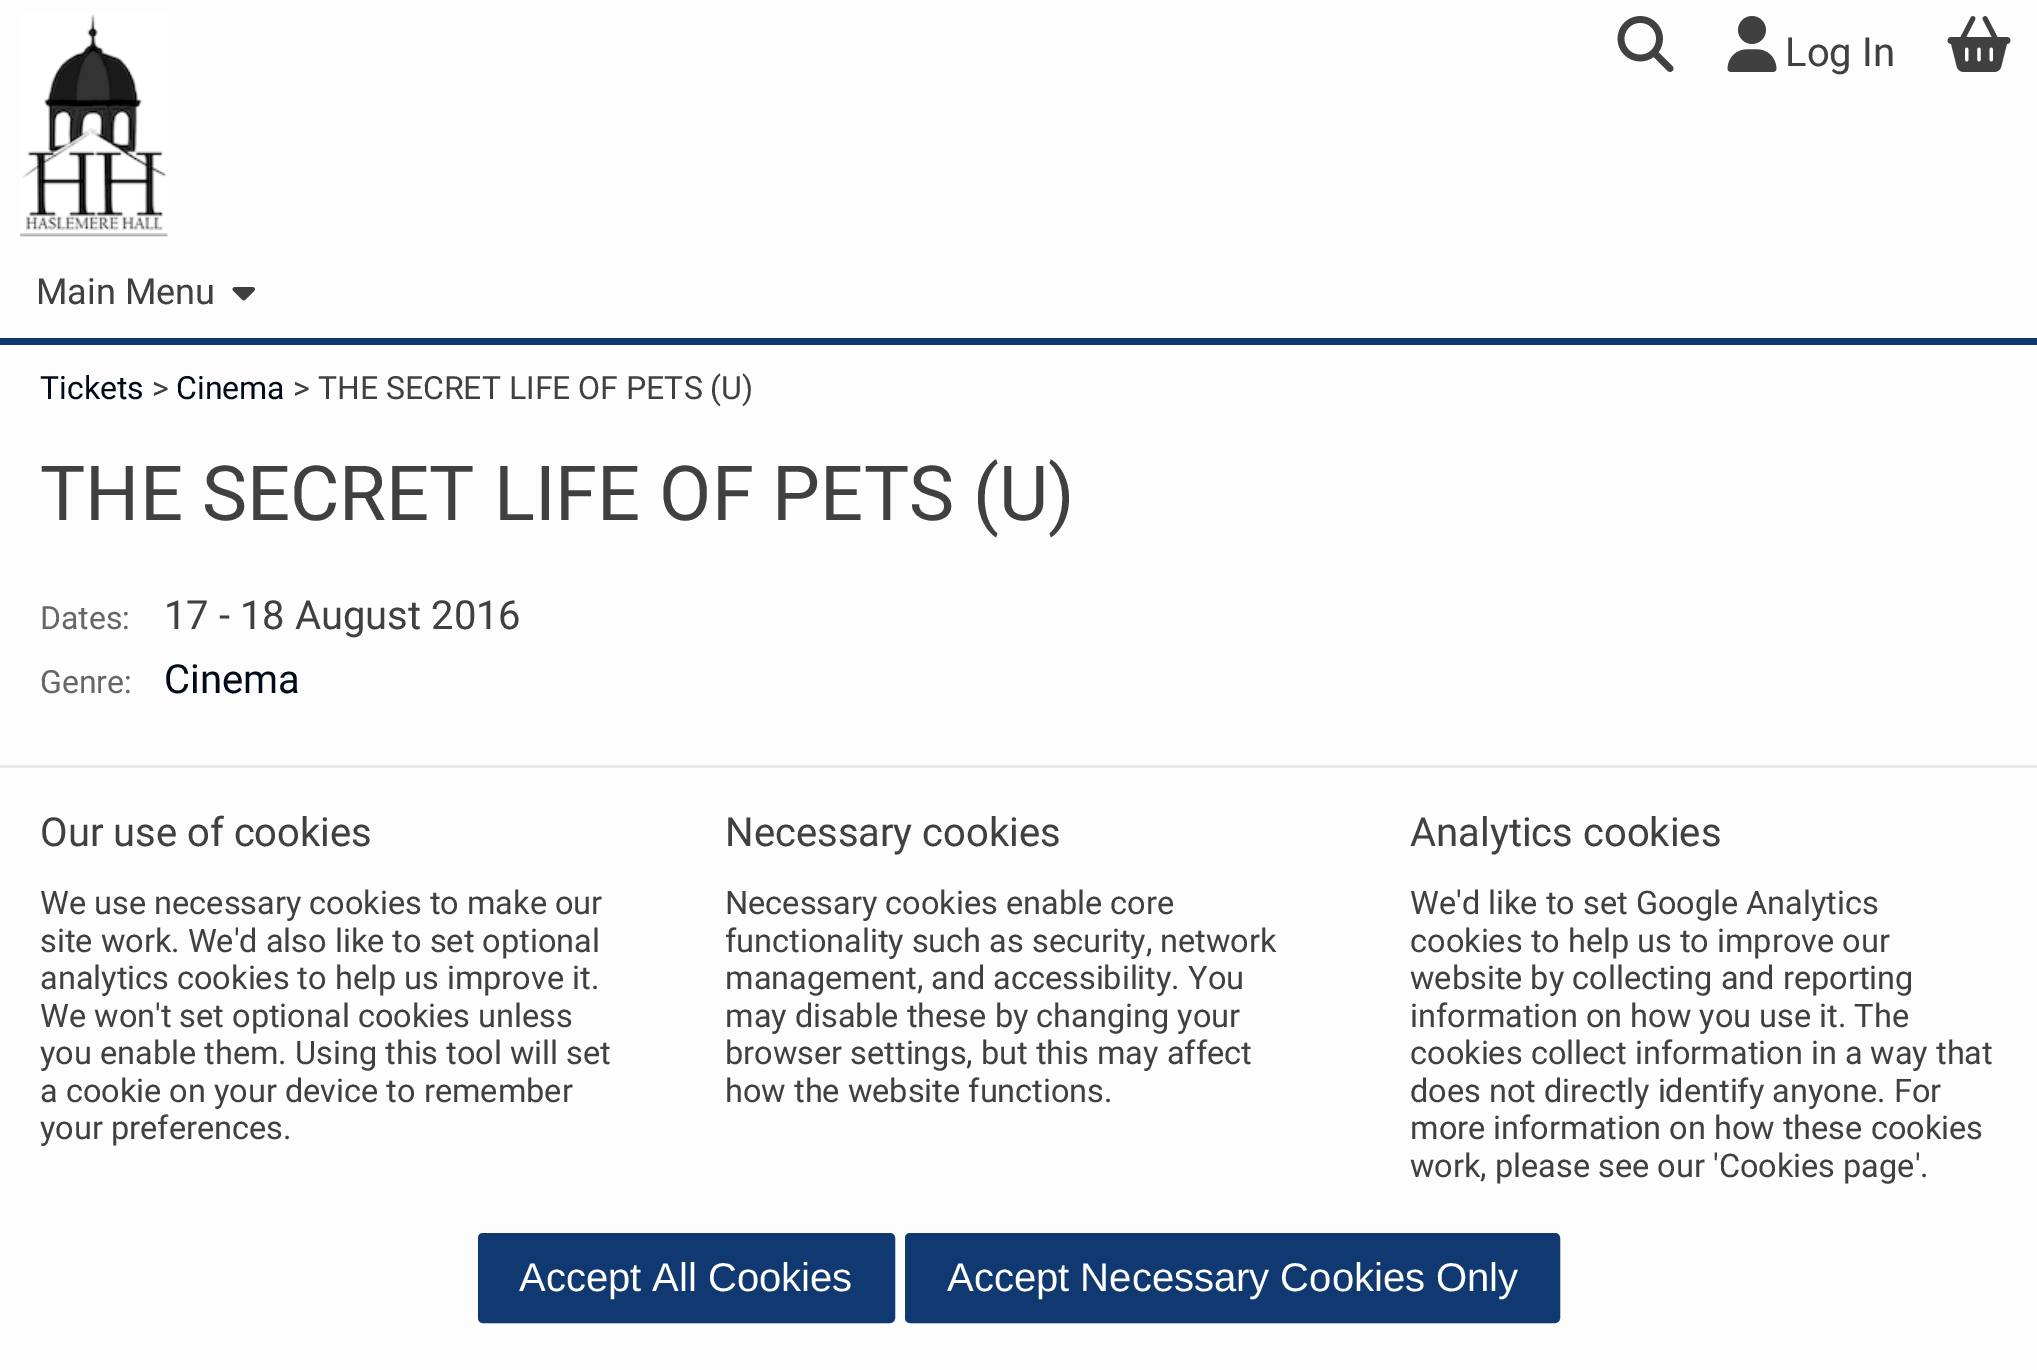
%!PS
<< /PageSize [2037 1370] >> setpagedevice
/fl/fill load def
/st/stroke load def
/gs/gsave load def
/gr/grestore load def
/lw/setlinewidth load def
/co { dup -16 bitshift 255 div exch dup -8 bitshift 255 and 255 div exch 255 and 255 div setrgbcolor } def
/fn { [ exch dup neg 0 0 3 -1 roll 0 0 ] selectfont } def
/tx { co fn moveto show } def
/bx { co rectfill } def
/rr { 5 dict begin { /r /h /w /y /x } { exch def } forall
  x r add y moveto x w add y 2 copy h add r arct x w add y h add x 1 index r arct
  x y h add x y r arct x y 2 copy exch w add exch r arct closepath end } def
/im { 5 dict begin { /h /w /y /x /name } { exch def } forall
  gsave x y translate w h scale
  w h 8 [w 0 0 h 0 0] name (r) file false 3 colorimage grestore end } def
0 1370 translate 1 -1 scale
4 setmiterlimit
0 0 2037 1370 16#FDFDFD bx
0 338 2037 7 16#113971 bx
(media/1.raw) 20 14 148 223 im
(media/2.raw) 1617 16 57 56 im
(media/3.raw) 1727 16 50 56 im
(media/4.raw) 1947 16 64 56 im
(media/5.raw) 232 287 23 14 im
0 765 2037 3 16#E9E9E9 bx
16#113971 co
479.5 1234.5 414 87 3.5 rr gs fl gr
3 lw
st
906.5 1234.5 652 87 3.5 rr gs fl gr
st
(Log In) 1785 66 /Roboto-Regular 40 16#404040 tx
(Main Menu) 36 304 /Roboto-Regular 36 16#404040 tx
(Tickets) 40 399 /Roboto-Regular 32 16#000A18 tx
(>) 152 399 /Roboto-Regular 32 16#404040 tx
(Cinema) 176 399 /Roboto-Regular 32 16#000A18 tx
(> THE SECRET LIFE OF PETS \(U\)) 293 399 /Roboto-Regular 32 16#404040 tx
(THE SECRET LIFE OF PETS \(U\)) 40 520 /Roboto-Regular 76 16#404040 tx
(Dates:) 40 629 /Roboto-Regular 32 16#666666 tx
(17 - 18 August 2016) 164 629 /Roboto-Regular 40 16#404040 tx
(Genre:) 40 693 /Roboto-Regular 32 16#666666 tx
(Cinema) 164 693 /Roboto-Regular 40 16#000A18 tx
(Our use of cookies) 40 846 /Roboto-Regular 40 16#404040 tx
(We use necessary cookies to make our) 40 914 /Roboto-Regular 32.5 16#404040 tx
(site work. We'd also like to set optional) 40 952 /Roboto-Regular 32.5 16#404040 tx
(analytics cookies to help us improve it.) 40 989 /Roboto-Regular 32.5 16#404040 tx
(We won't set optional cookies unless) 40 1027 /Roboto-Regular 32.5 16#404040 tx
(you enable them. Using this tool will set) 40 1064 /Roboto-Regular 32.5 16#404040 tx
(a cookie on your device to remember) 40 1102 /Roboto-Regular 32.5 16#404040 tx
(your preferences.) 40 1139 /Roboto-Regular 32.5 16#404040 tx
(Necessary cookies) 725 846 /Roboto-Regular 40 16#404040 tx
(Necessary cookies enable core) 725 914 /Roboto-Regular 32.5 16#404040 tx
(functionality such as security, network) 725 952 /Roboto-Regular 32.5 16#404040 tx
(management, and accessibility. You) 725 989 /Roboto-Regular 32.5 16#404040 tx
(may disable these by changing your) 725 1027 /Roboto-Regular 32.5 16#404040 tx
(browser settings, but this may affect) 725 1064 /Roboto-Regular 32.5 16#404040 tx
(how the website functions.) 725 1102 /Roboto-Regular 32.5 16#404040 tx
(Analytics cookies) 1410 846 /Roboto-Regular 40 16#404040 tx
(We'd like to set Google Analytics) 1410 914 /Roboto-Regular 32.5 16#404040 tx
(cookies to help us to improve our) 1410 952 /Roboto-Regular 32.5 16#404040 tx
(website by collecting and reporting) 1410 989 /Roboto-Regular 32.5 16#404040 tx
(information on how you use it. The) 1410 1027 /Roboto-Regular 32.5 16#404040 tx
(cookies collect information in a way that) 1410 1064 /Roboto-Regular 32.5 16#404040 tx
(does not directly identify anyone. For) 1410 1102 /Roboto-Regular 32.5 16#404040 tx
(more information on how these cookies) 1410 1139 /Roboto-Regular 32.5 16#404040 tx
(work, please see our 'Cookies page'.) 1410 1177 /Roboto-Regular 32.5 16#404040 tx
(Accept All Cookies) 519 1291 /LiberationSans-Regular 40 16#FFFFFF tx
(Accept Necessary Cookies Only) 947 1291 /LiberationSans-Regular 40 16#FFFFFF tx
showpage
